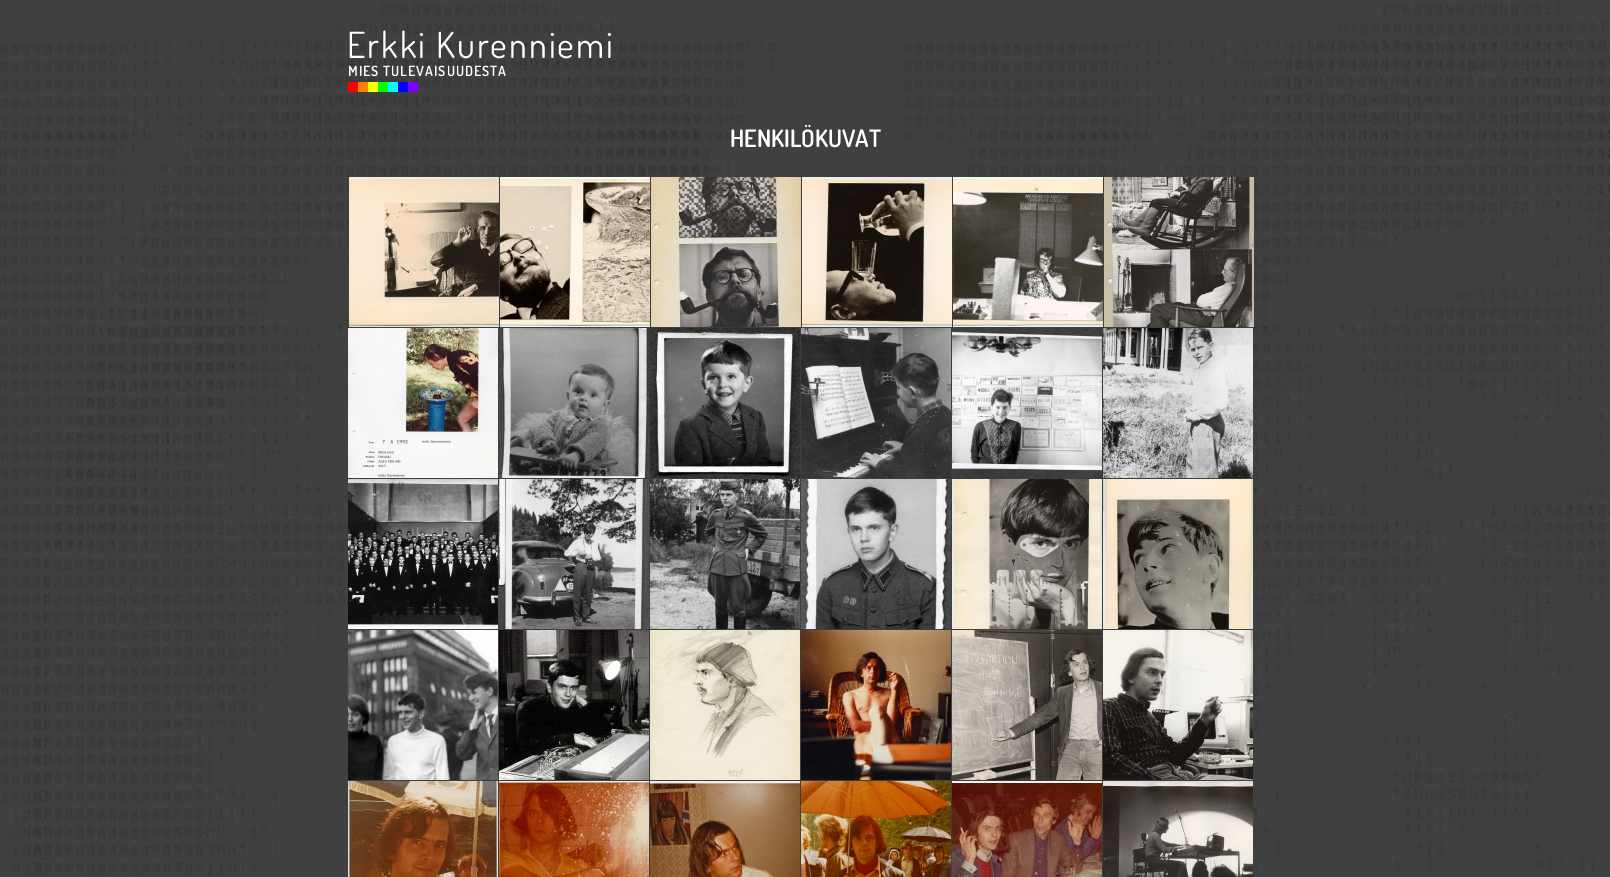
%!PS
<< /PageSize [1610 877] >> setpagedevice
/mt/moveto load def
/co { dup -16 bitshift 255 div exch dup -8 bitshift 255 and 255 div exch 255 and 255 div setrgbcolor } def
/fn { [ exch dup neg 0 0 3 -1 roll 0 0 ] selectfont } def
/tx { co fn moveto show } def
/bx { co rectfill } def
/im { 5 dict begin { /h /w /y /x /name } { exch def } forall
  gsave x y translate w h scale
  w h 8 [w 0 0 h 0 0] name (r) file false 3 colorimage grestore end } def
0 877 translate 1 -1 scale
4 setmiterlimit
0 0 1610 877 16#404040 bx
(media/1.raw) 0 3 1610 872 im
(media/2.raw) 348 82 70 10 im
(media/3.raw) 349 177 150 150 im
(media/4.raw) 500 177 150 150 im
(media/5.raw) 651 177 150 150 im
(media/6.raw) 802 177 150 150 im
(media/7.raw) 953 177 150 150 im
(media/8.raw) 1104 177 150 150 im
(media/9.raw) 348 328 150 150 im
(media/10.raw) 499 328 150 150 im
(media/11.raw) 650 328 150 150 im
(media/12.raw) 801 328 150 150 im
(media/13.raw) 952 328 150 150 im
(media/14.raw) 1103 328 150 150 im
(media/15.raw) 348 479 150 150 im
(media/16.raw) 499 479 150 150 im
(media/17.raw) 650 479 150 150 im
(media/18.raw) 801 479 150 150 im
(media/19.raw) 952 479 150 150 im
(media/20.raw) 1103 479 150 150 im
(media/21.raw) 348 630 150 150 im
(media/22.raw) 499 630 150 150 im
(media/23.raw) 650 630 150 150 im
(media/24.raw) 801 630 150 150 im
(media/25.raw) 952 630 150 150 im
(media/26.raw) 1103 630 150 150 im
(media/27.raw) 348 781 150 96 im
(media/28.raw) 499 781 150 96 im
(media/29.raw) 650 781 150 96 im
(media/30.raw) 801 781 150 96 im
(media/31.raw) 952 781 150 96 im
(media/32.raw) 1103 781 150 96 im
/Dosis-Regular 36 fn
16#FFFFFF co
347 58 mt 2 0 (Erkki Kurenniemi) ashow
/Dosis-SemiBold 14 fn
348 76 mt 1 0 (MIES TULEVAISUUDESTA) ashow
(HENKILÖKUVAT) 730 147 /Dosis-SemiBold 24 16#FFFFFF tx
showpage
